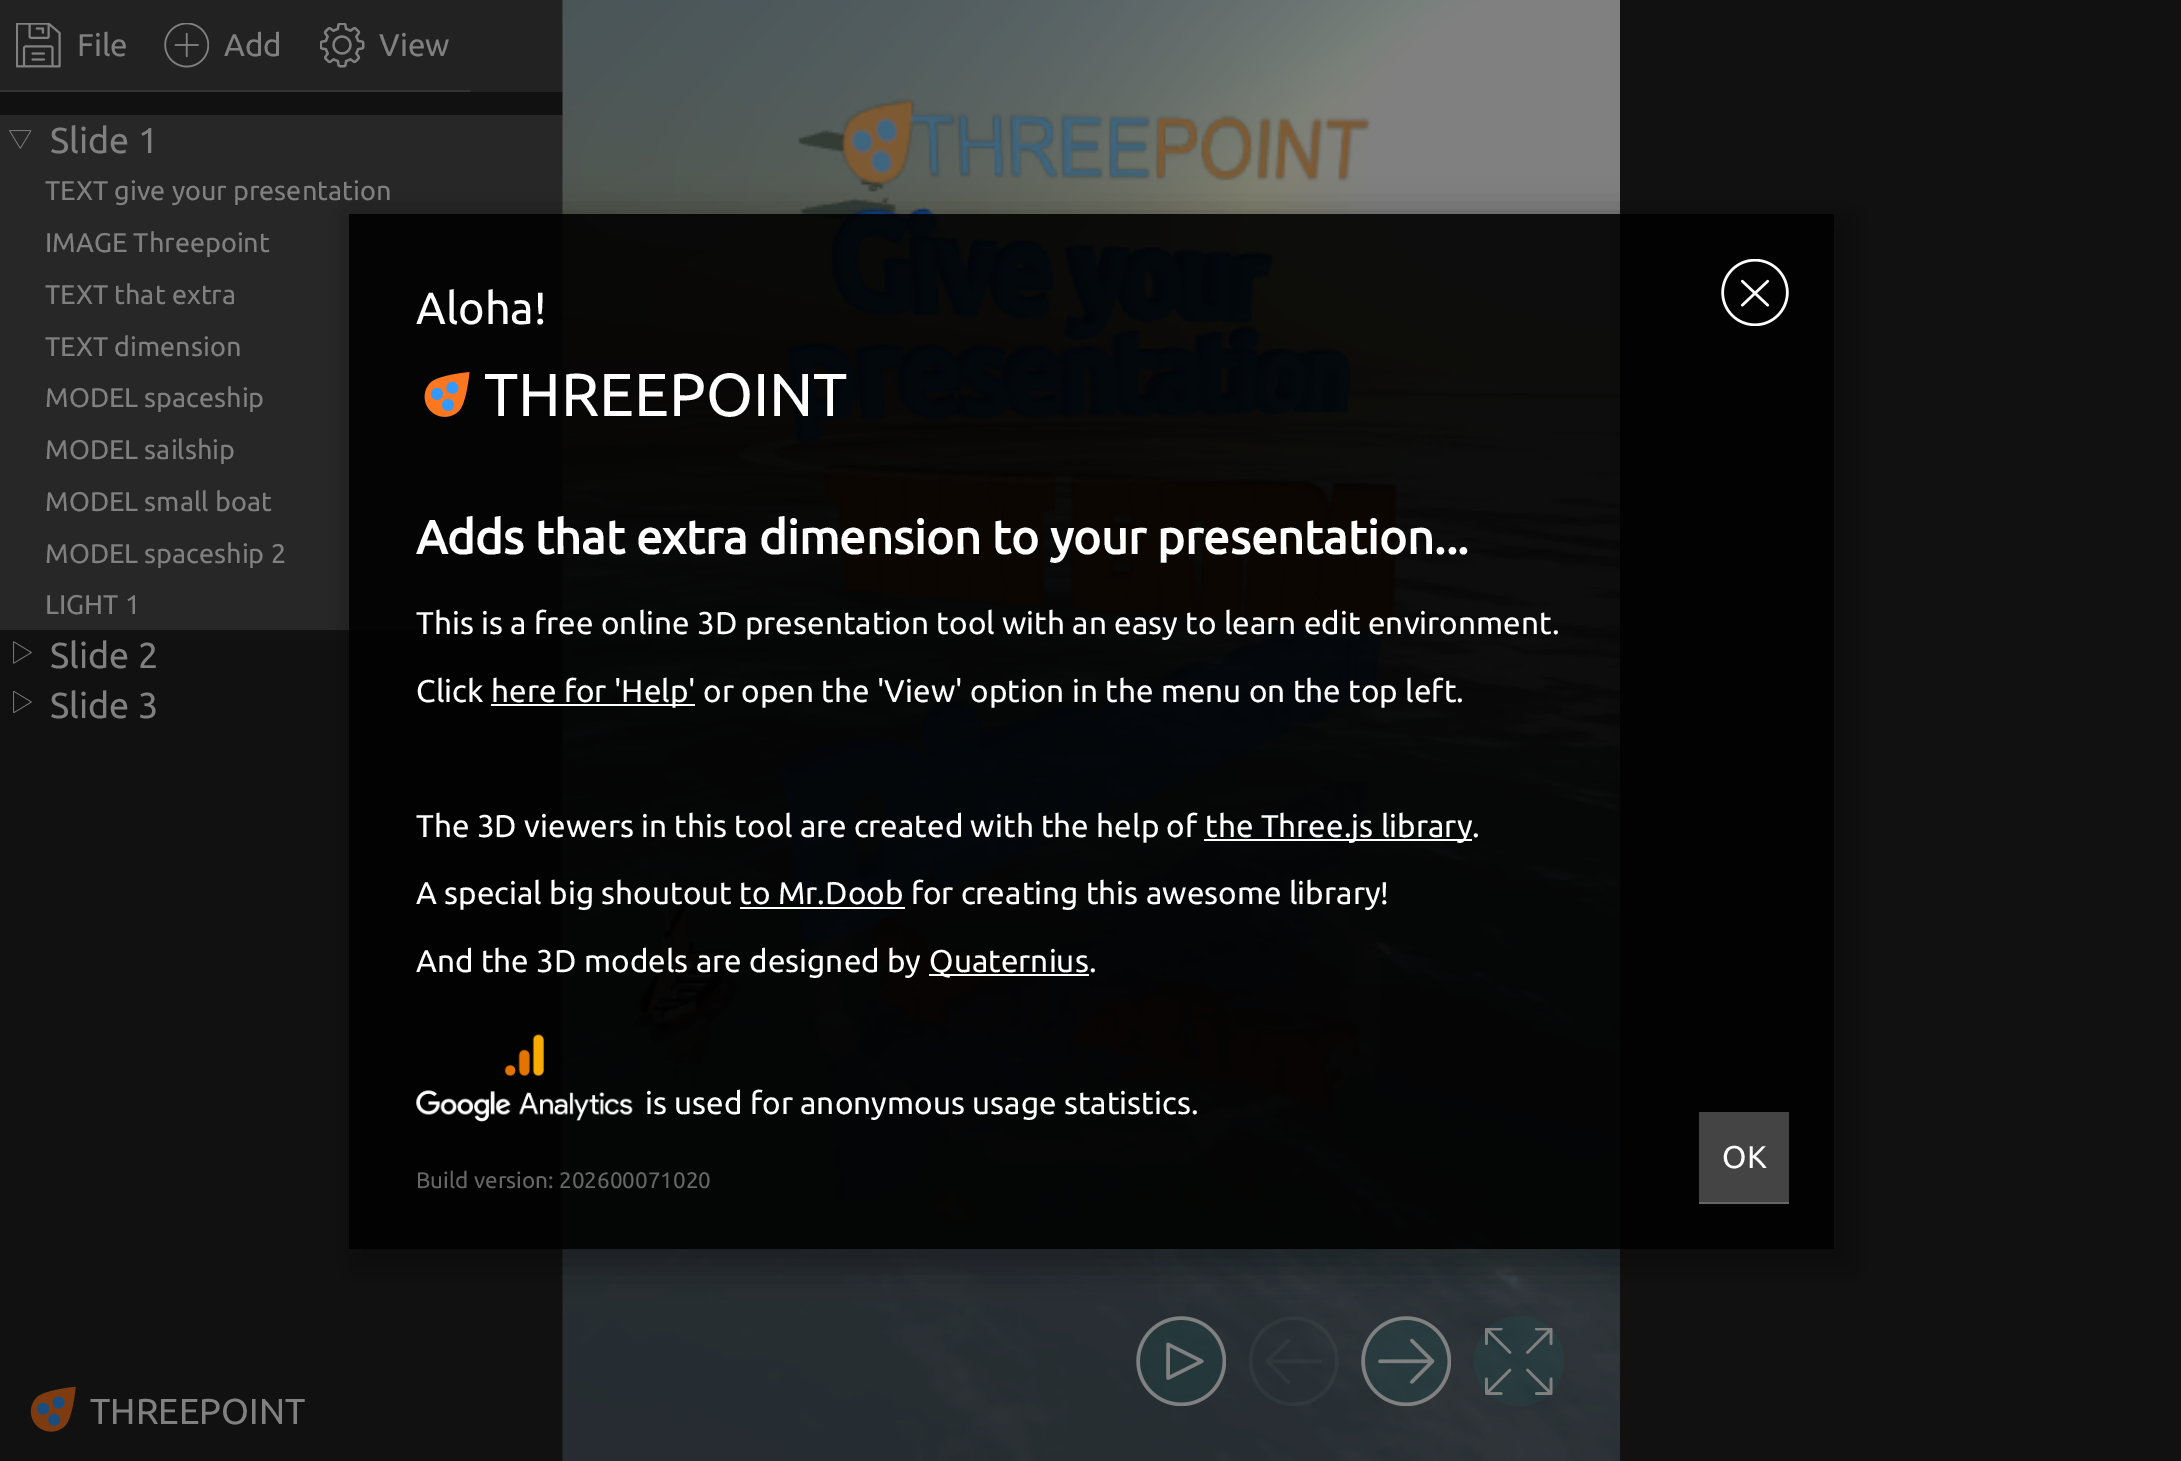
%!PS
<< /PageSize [2181 1461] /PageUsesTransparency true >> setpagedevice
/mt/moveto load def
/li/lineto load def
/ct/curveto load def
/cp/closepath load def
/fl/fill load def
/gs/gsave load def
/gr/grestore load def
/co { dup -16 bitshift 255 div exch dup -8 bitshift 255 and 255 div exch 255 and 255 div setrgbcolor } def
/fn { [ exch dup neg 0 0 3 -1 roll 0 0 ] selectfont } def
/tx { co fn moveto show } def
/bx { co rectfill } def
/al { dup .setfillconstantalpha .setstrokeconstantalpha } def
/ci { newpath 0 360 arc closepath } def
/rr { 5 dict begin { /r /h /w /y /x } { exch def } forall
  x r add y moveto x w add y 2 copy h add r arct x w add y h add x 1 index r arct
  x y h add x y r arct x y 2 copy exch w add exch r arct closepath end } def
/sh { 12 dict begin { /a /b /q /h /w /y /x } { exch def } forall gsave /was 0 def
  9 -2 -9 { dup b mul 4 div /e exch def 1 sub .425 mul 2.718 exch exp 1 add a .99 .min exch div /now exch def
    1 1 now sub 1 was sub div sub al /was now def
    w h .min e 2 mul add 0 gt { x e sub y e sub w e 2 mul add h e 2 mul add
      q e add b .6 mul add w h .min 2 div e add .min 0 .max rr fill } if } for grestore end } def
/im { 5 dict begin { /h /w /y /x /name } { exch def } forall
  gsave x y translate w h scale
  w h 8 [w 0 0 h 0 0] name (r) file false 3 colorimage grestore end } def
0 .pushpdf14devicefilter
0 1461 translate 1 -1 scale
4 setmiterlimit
0 0 2181 1461 16#111111 bx
0 0 563 92 16#222222 bx
(media/1.raw) 16 23 45 45 im
0 90 470 2 16#333333 bx
(media/2.raw) 164 23 45 45 im
(media/3.raw) 320 23 45 45 im
0 115 563 515 16#272727 bx
(media/4.raw) 9 130 23 19 im
(media/5.raw) 13 641 19 23 im
(media/6.raw) 13 691 19 22 im
(media/7.raw) 30 1386 46 46 im
(media/8.raw) 562 0 1058 1461 im
0.1 al
16#008080 co
1181 1361 45 ci fl
1 al
(media/9.raw) 1136 1316 90 90 im
(media/10.raw) 1249 1316 90 90 im
0.1 al
1406 1406 mt 1381 1406 1361 1386 1361 1361 ct 1361 1336 1381 1316 1406 1316 ct 1431 1316 1451 1336 1451 1361 ct 1451 1386 1431 1406 1406 1406 ct cp fl
1 al
(media/11.raw) 1361 1316 90 90 im
0.1 al
1519 1361 45 ci fl
1 al
(media/12.raw) 1485 1328 68 67 im
gs
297 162 mt 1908 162 li 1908 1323 li 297 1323 li cp 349 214 mt 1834 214 li 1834 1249 li 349 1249 li cp eoclip newpath
16#000000 co
349 214 1507 1057 0 17 .3 sh
gr
0.9 al
349 214 1485 1035 16#000000 bx
1 al
(media/13.raw) 1721 259 68 67 im
(media/14.raw) 424 372 46 45 im
491 704 204 2 16#FFFFFF bx
1204 839 268 2 16#FFFFFF bx
740 907 165 2 16#FFFFFF bx
929 974 160 2 16#FFFFFF bx
(media/15.raw) 416 1034 217 88 im
1699 1112 90 90 16#444444 bx
1699 1202 90 2 16#666666 bx
(File) 77 56 /Ubuntu-Regular 31.5 16#808080 tx
(Add) 224 56 /Ubuntu-Regular 31.5 16#808080 tx
(View) 379 56 /Ubuntu-Regular 31.5 16#808080 tx
(Slide 1) 50 153 /Ubuntu-Regular 36 16#808080 tx
(TEXT give your presentation) 45 200 /Ubuntu-Regular 27 16#808080 tx
(IMAGE Threepoint) 45 252 /Ubuntu-Regular 27 16#808080 tx
(TEXT that extra) 45 304 /Ubuntu-Regular 27 16#808080 tx
(TEXT dimension) 45 356 /Ubuntu-Regular 27 16#808080 tx
(MODEL spaceship) 45 407 /Ubuntu-Regular 27 16#808080 tx
(MODEL sailship) 45 459 /Ubuntu-Regular 27 16#808080 tx
(MODEL small boat) 45 511 /Ubuntu-Regular 27 16#808080 tx
(MODEL spaceship 2) 45 563 /Ubuntu-Regular 27 16#808080 tx
(LIGHT 1) 45 614 /Ubuntu-Regular 27 16#808080 tx
(Slide 2) 50 668 /Ubuntu-Regular 36 16#808080 tx
(Slide 3) 50 718 /Ubuntu-Regular 36 16#808080 tx
(THREEPOINT) 90 1424 /Ubuntu-Regular 36 16#808080 tx
(Aloha!) 416 324 /Ubuntu-Regular 45 16#FFFFFF tx
(THREEPOINT) 484 416 /Ubuntu-Regular 60.75 16#FFFFFF tx
(Adds that extra dimension to your presentation...) 416 554 /Ubuntu-Bold 47.25 16#FFFFFF tx
(This is a free online 3D presentation tool with an easy to learn edit environment.) 416 634 /Ubuntu-Regular 31.5 16#FFFFFF tx
(Click) 416 702 /Ubuntu-Regular 31.5 16#FFFFFF tx
(here for 'Help' or open the 'View' option in the menu on the top left.) 491 702 /Ubuntu-Regular 31.5 16#FFFFFF tx
(The 3D viewers in this tool are created with the help of) 416 837 /Ubuntu-Regular 31.5 16#FFFFFF tx
(the Three.js library.) 1205 837 /Ubuntu-Regular 31.5 16#FFFFFF tx
(A special big shoutout to Mr.Doob for creating this awesome library!) 416 904 /Ubuntu-Regular 31.5 16#FFFFFF tx
(And the 3D models are designed by) 416 972 /Ubuntu-Regular 31.5 16#FFFFFF tx
(Quaternius.) 929 972 /Ubuntu-Regular 31.5 16#FFFFFF tx
(is used for anonymous usage statistics.) 645 1114 /Ubuntu-Regular 31.5 16#FFFFFF tx
(Build version: 202600071020) 416 1188 /Ubuntu-Regular 22.5 16#666666 tx
(OK) 1722 1168 /Ubuntu-Regular 31.5 16#FFFFFF tx
.poppdf14devicefilter showpage
